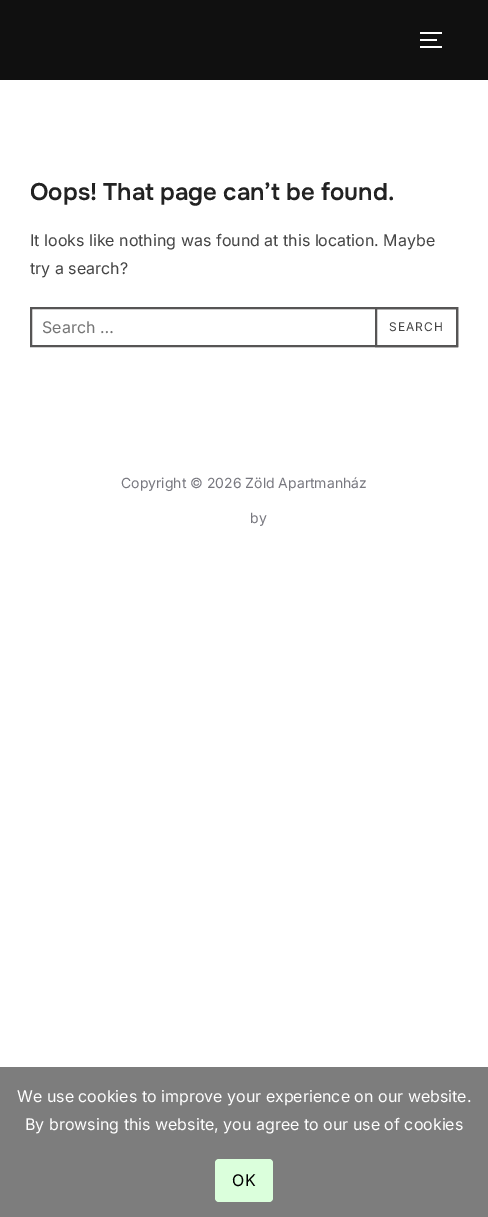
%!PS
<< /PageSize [488 1217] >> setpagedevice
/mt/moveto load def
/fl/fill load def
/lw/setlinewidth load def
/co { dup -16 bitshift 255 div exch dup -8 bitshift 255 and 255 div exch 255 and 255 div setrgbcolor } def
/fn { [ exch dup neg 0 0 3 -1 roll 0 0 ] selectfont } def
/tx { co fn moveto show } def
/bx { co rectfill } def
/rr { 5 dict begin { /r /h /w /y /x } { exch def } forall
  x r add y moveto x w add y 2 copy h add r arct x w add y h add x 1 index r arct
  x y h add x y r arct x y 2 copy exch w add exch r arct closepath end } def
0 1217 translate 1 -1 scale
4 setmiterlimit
0 0 488 1217 16#FFFFFF bx
0 0 488 80 16#101010 bx
420 32 22 2 16#FFFFFF bx
420 39 17 2 16#FFFFFF bx
420 46 22 2 16#FFFFFF bx
16#565555 co
2 lw
31 308 426 38 rectstroke
376 308 81 38 rectstroke
0 1067 488 150 16#7D7D7D bx
16#DBFFDC co
215 1159 58 43 4 rr fl
/Onest-SemiBold 24 fn
16#222222 co
30 200 mt -.5 0 32 (Oops! That page can’t be found.) widthshow
(It looks like nothing was found at this location. Maybe) 30 246 /Inter-Regular 16 16#444444 tx
(try a search?) 30 274 /Inter-Regular 16 16#444444 tx
(Search …) 42 333 /Inter-Regular 16 16#757575 tx
/Inter-Regular 12 fn
16#444444 co
389 331 mt 1 0 (SEARCH) ashow
(Copyright © 2026 Zöld Apartmanház) 121 488 /Inter-Regular 14 16#78787F tx
(by) 250 523 /Inter-Regular 14 16#78787F tx
(We use cookies to improve your experience on our website.) 17 1102 /Inter-Regular 16 16#FFFFFF tx
(By browsing this website, you agree to our use of cookies) 25 1130 /Inter-Regular 16 16#FFFFFF tx
16#000000 co
232 1186 mt 1 0 (OK) ashow
showpage
